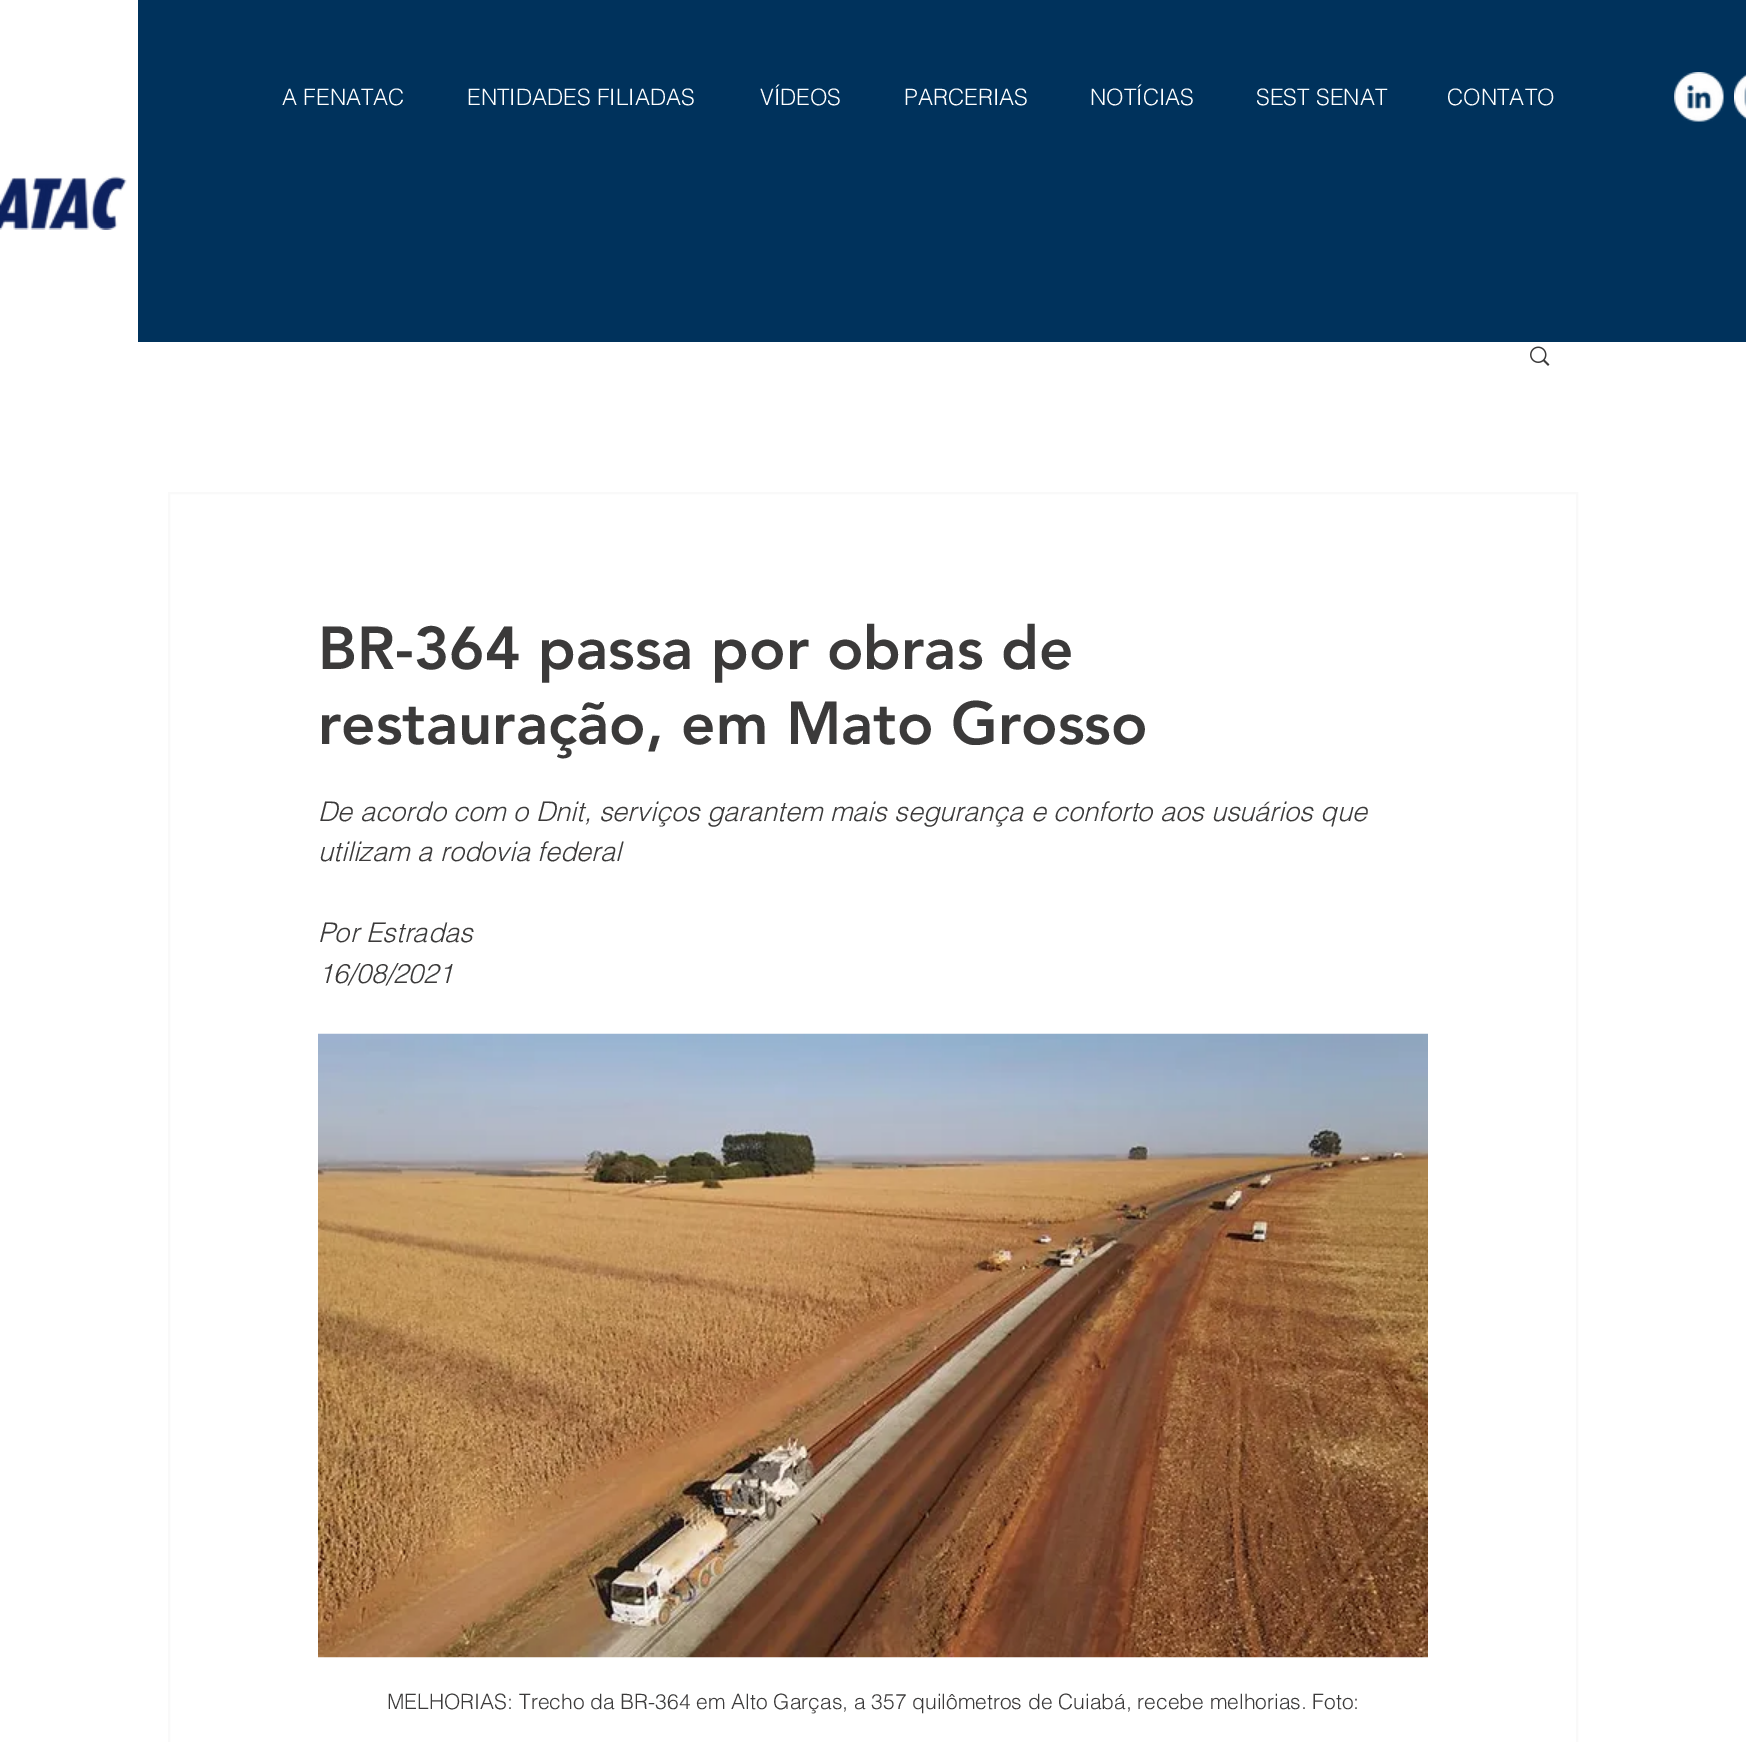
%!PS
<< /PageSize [1746 1742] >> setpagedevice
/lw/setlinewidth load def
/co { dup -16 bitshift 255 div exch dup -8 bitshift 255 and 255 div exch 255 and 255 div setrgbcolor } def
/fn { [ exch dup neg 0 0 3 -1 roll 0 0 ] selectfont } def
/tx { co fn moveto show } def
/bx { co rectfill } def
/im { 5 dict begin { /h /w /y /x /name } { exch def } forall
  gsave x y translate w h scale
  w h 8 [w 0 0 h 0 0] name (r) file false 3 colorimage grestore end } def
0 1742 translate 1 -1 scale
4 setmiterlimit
0 0 1746 1742 16#FFFFFF bx
138 0 1608 342 16#00325C bx
(media/1.raw) 1674 72 50 50 im
(media/2.raw) 1734 74 12 45 im
(media/3.raw) 0 176 127 54 im
(media/4.raw) 1530 346 20 20 im
16#F9F9F9 co
2 lw
169 493 1408 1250 rectstroke
(media/5.raw) 318 1033 1110 625 im
(A FENATAC) 282 105 /helvetica-Light 22.5 16#FFFFFF tx
(ENTIDADES FILIADAS) 467 105 /helvetica-Light 22.5 16#FFFFFF tx
(VÍDEOS) 760 105 /helvetica-Light 22.5 16#FFFFFF tx
(PARCERIAS) 904 105 /helvetica-Light 22.5 16#FFFFFF tx
(NOTÍCIAS) 1090 105 /helvetica-Light 22.5 16#FFFFFF tx
(SEST SENAT) 1256 105 /helvetica-Light 22.5 16#FFFFFF tx
(CONTATO) 1447 105 /helvetica-Light 22.5 16#FFFFFF tx
(BR-364 passa por obras de) 318 669 /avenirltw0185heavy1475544-Black 60 16#3B3A3A tx
(restauração, em Mato Grosso) 318 744 /avenirltw0185heavy1475544-Black 60 16#3B3A3A tx
(De acordo com o Dnit, serviços garantem mais segurança e conforto aos usuários que) 318 821 /helvetica-LightItalic 27 16#3B3A3A tx
(utilizam a rodovia federal) 318 861 /helvetica-LightItalic 27 16#3B3A3A tx
(Por Estradas) 318 942 /helvetica-LightItalic 27 16#3B3A3A tx
(16/08/2021) 318 983 /helvetica-LightItalic 27 16#3B3A3A tx
(MELHORIAS: Trecho da BR-364 em Alto Garças, a 357 quilômetros de Cuiabá, recebe melhorias. Foto:) 387 1709 /helvetica-Light 21 16#3B3A3A tx
showpage
